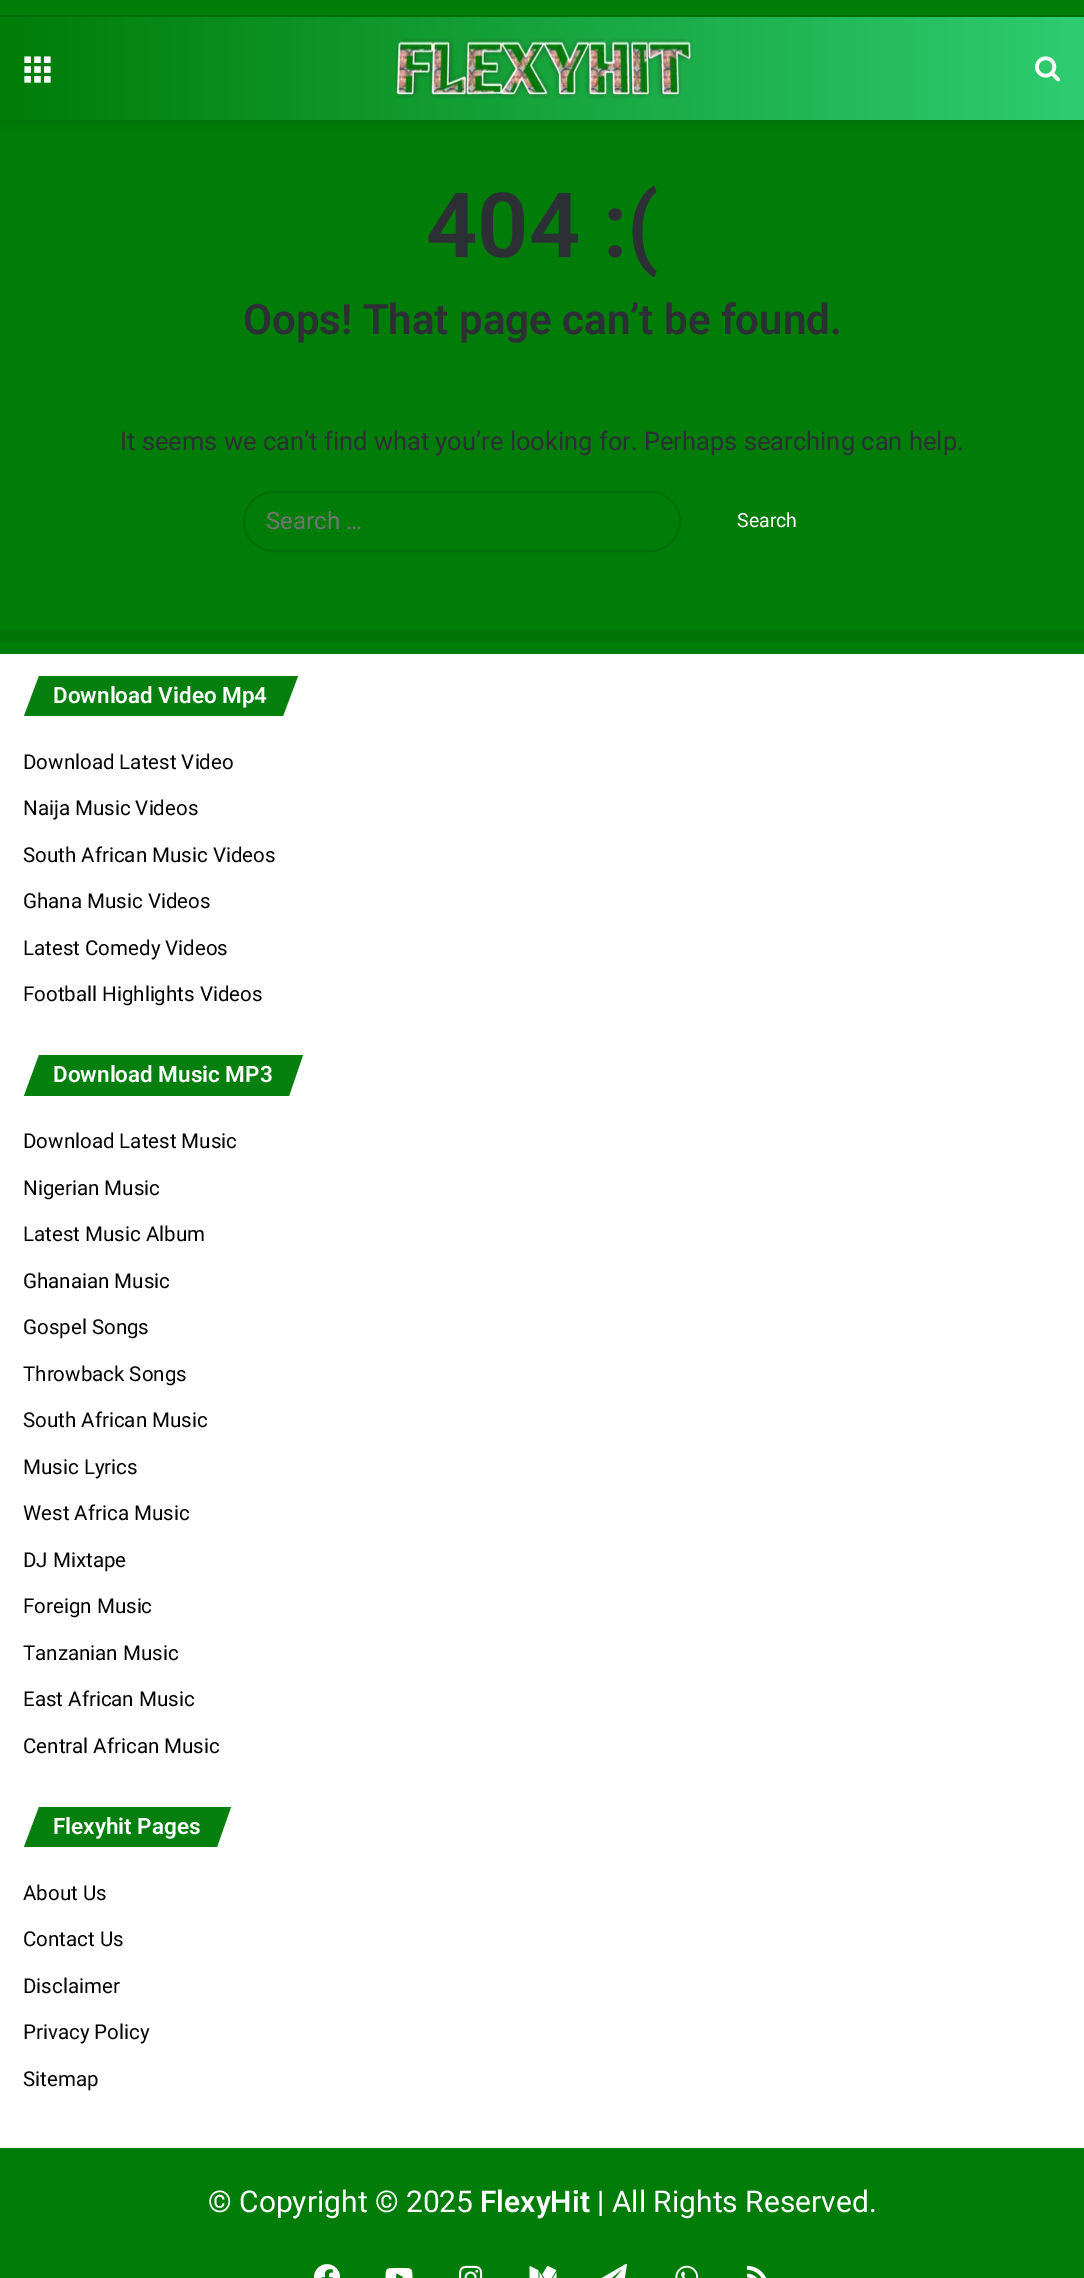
%!PS
<< /PageSize [1084 2278] /PageUsesTransparency true >> setpagedevice
/mt/moveto load def
/li/lineto load def
/cp/closepath load def
/fl/fill load def
/st/stroke load def
/gs/gsave load def
/gr/grestore load def
/lw/setlinewidth load def
/co { dup -16 bitshift 255 div exch dup -8 bitshift 255 and 255 div exch 255 and 255 div setrgbcolor } def
/fn { [ exch dup neg 0 0 3 -1 roll 0 0 ] selectfont } def
/tx { co fn moveto show } def
/bx { co rectfill } def
/al { dup .setfillconstantalpha .setstrokeconstantalpha } def
/rr { 5 dict begin { /r /h /w /y /x } { exch def } forall
  x r add y moveto x w add y 2 copy h add r arct x w add y h add x 1 index r arct
  x y h add x y r arct x y 2 copy exch w add exch r arct closepath end } def
/sh { 12 dict begin { /a /b /q /h /w /y /x } { exch def } forall gsave /was 0 def
  9 -2 -9 { dup b mul 4 div /e exch def 1 sub .425 mul 2.718 exch exp 1 add a .99 .min exch div /now exch def
    1 1 now sub 1 was sub div sub al /was now def
    w h .min e 2 mul add 0 gt { x e sub y e sub w e 2 mul add h e 2 mul add
      q e add b .6 mul add w h .min 2 div e add .min 0 .max rr fill } if } for grestore end } def
/im { 5 dict begin { /h /w /y /x /name } { exch def } forall
  gsave x y translate w h scale
  w h 8 [w 0 0 h 0 0] name (r) file false 3 colorimage grestore end } def
0 .pushpdf14devicefilter
0 2278 translate 1 -1 scale
4 setmiterlimit
0 0 1084 2278 16#007C08 bx
16#000000 co
0 21 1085 104 0 5 .1 sh
gs 0 17 mt 1084 17 li 1084 120 li 0 120 li cp clip newpath
<< /ShadingType 2 /ColorSpace /DeviceRGB /Coords [0 68 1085 68] /Extend [true true] /Function << /FunctionType 2 /Domain [0 1] /C0 [0 .486 .031] /C1 [.18 .8 .443] /N 1 >> >> shfill gr
(media/1.raw) 24 56 27 27 im
(media/2.raw) 394 38 299 61 im
(media/3.raw) 1035 56 26 26 im
0 15 1084 2 16#007007 bx
2 lw
244 492 436 59 29.5 rr st
0 654 1084 1494 16#FFFFFF bx
16#007307 co
0 630 mt 0 642 li 1084 642 li 1084 2136 li 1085 2136 li 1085 630 li cp fl
16#057F0D co
39 676 mt 298 676 li 283 716 li 24 716 li cp fl
39 1055 mt 303 1055 li 289 1096 li 24 1096 li cp fl
39 1807 mt 231 1807 li 217 1847 li 24 1847 li cp fl
(media/4.raw) 313 2264 28 14 im
(media/5.raw) 385 2267 28 11 im
(media/6.raw) 459 2265 24 13 im
(media/7.raw) 529 2266 28 12 im
(media/8.raw) 601 2263 26 15 im
(media/9.raw) 675 2265 24 13 im
(media/10.raw) 747 2265 20 13 im
(404 :\() 426 257 /Roboto-SemiBold 90 16#2C2F34 tx
(Oops! That page can’t be found.) 243 334 /Roboto-SemiBold 42 16#2C2F34 tx
(It seems we can’t find what you’re looking for. Perhaps searching can help.) 120 450 /Roboto-Regular 25.5 16#2C2F34 tx
(Search …) 266 529 /Roboto-Regular 24 16#757575 tx
(Search) 737 527 /Roboto-Regular 19.5 16#FFFFFF tx
(Download Video Mp4) 53 703 /Roboto-SemiBold 22.5 16#FFFFFF tx
(Download Latest Video) 23 769 /Roboto-Regular 20.5 16#030303 tx
(Naija Music Videos) 23 815 /Roboto-Regular 20.5 16#030303 tx
(South African Music Videos) 23 862 /Roboto-Regular 20.5 16#030303 tx
(Ghana Music Videos) 23 908 /Roboto-Regular 20.5 16#030303 tx
(Latest Comedy Videos) 23 955 /Roboto-Regular 20.5 16#030303 tx
(Football Highlights Videos) 23 1001 /Roboto-Regular 20.5 16#030303 tx
(Download Music MP3) 53 1082 /Roboto-SemiBold 22.5 16#FFFFFF tx
(Download Latest Music) 23 1148 /Roboto-Regular 20.5 16#030303 tx
(Nigerian Music) 23 1195 /Roboto-Regular 20.5 16#030303 tx
(Latest Music Album) 23 1241 /Roboto-Regular 20.5 16#030303 tx
(Ghanaian Music) 23 1288 /Roboto-Regular 20.5 16#030303 tx
(Gospel Songs) 23 1334 /Roboto-Regular 20.5 16#030303 tx
(Throwback Songs) 23 1381 /Roboto-Regular 20.5 16#030303 tx
(South African Music) 23 1427 /Roboto-Regular 20.5 16#030303 tx
(Music Lyrics) 23 1474 /Roboto-Regular 20.5 16#030303 tx
(West Africa Music) 23 1520 /Roboto-Regular 20.5 16#030303 tx
(DJ Mixtape) 23 1567 /Roboto-Regular 20.5 16#030303 tx
(Foreign Music) 23 1613 /Roboto-Regular 20.5 16#030303 tx
(Tanzanian Music) 23 1660 /Roboto-Regular 20.5 16#030303 tx
(East African Music) 23 1706 /Roboto-Regular 20.5 16#030303 tx
(Central African Music) 23 1753 /Roboto-Regular 20.5 16#030303 tx
(Flexyhit Pages) 53 1834 /Roboto-SemiBold 22.5 16#FFFFFF tx
(About Us) 23 1900 /Roboto-Regular 20.5 16#030303 tx
(Contact Us) 23 1946 /Roboto-Regular 20.5 16#030303 tx
(Disclaimer) 23 1993 /Roboto-Regular 20.5 16#030303 tx
(Privacy Policy) 23 2039 /Roboto-Regular 20.5 16#030303 tx
(Sitemap) 23 2086 /Roboto-Regular 20.5 16#030303 tx
(© Copyright © 2025) 208 2212 /Roboto-Regular 30 16#FFFFFF tx
(FlexyHit) 480 2212 /Roboto-SemiBold 30 16#FFFFFF tx
(| All Rights Reserved.) 597 2212 /Roboto-Regular 30 16#FFFFFF tx
.poppdf14devicefilter showpage
